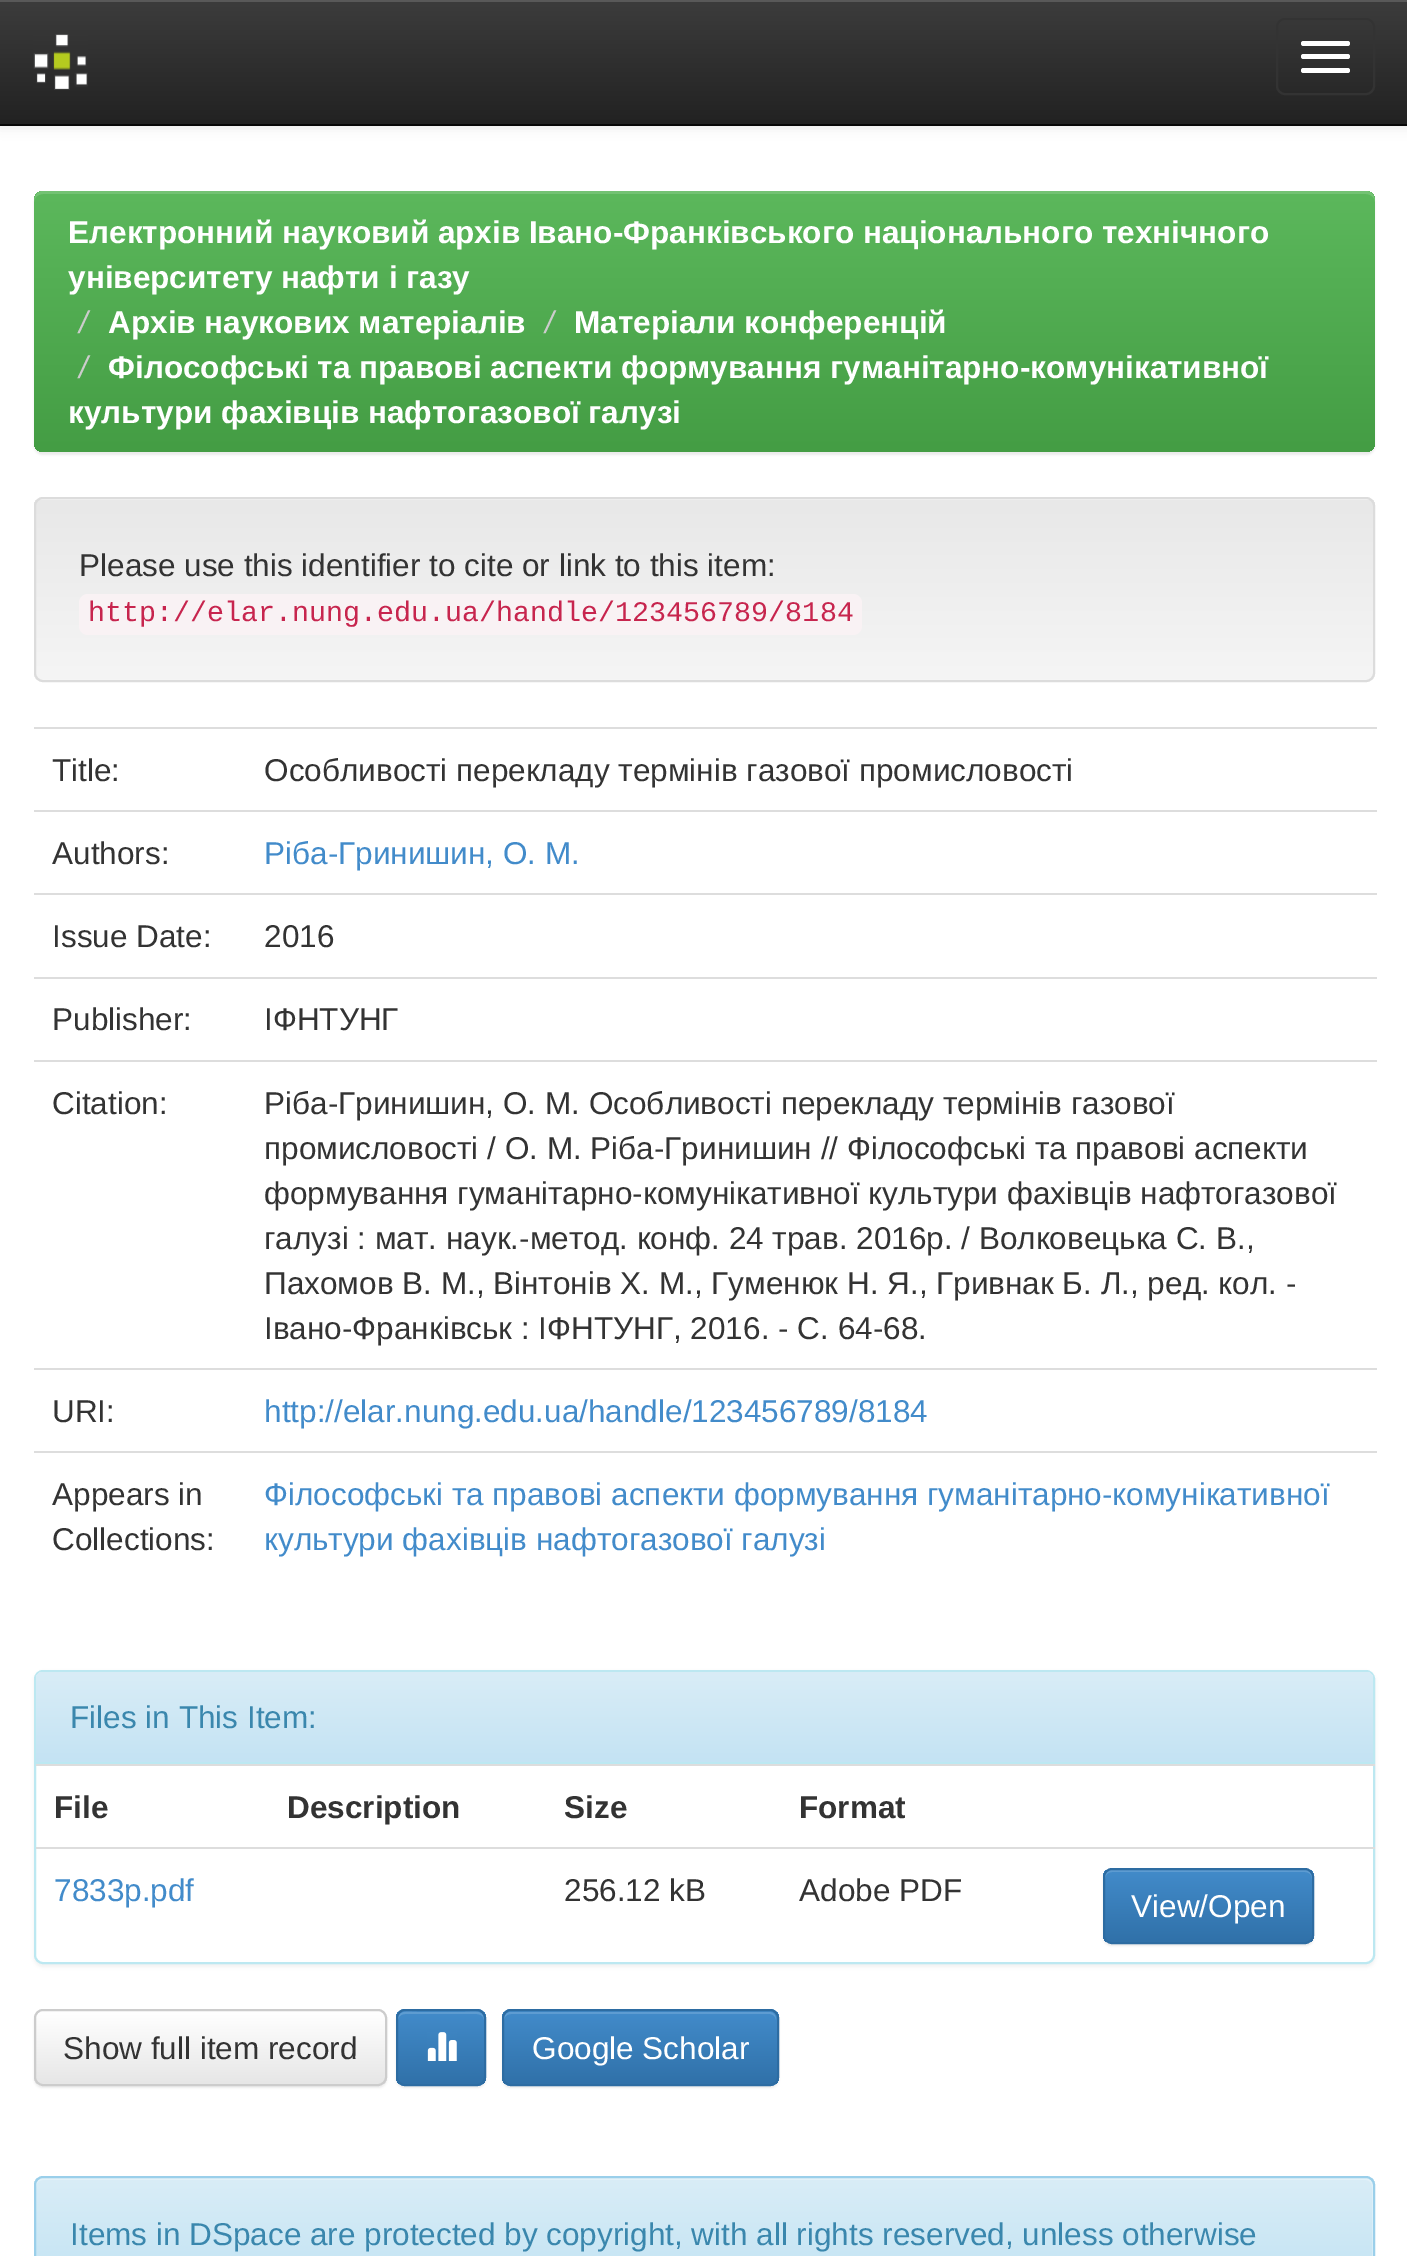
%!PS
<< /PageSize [1407 2256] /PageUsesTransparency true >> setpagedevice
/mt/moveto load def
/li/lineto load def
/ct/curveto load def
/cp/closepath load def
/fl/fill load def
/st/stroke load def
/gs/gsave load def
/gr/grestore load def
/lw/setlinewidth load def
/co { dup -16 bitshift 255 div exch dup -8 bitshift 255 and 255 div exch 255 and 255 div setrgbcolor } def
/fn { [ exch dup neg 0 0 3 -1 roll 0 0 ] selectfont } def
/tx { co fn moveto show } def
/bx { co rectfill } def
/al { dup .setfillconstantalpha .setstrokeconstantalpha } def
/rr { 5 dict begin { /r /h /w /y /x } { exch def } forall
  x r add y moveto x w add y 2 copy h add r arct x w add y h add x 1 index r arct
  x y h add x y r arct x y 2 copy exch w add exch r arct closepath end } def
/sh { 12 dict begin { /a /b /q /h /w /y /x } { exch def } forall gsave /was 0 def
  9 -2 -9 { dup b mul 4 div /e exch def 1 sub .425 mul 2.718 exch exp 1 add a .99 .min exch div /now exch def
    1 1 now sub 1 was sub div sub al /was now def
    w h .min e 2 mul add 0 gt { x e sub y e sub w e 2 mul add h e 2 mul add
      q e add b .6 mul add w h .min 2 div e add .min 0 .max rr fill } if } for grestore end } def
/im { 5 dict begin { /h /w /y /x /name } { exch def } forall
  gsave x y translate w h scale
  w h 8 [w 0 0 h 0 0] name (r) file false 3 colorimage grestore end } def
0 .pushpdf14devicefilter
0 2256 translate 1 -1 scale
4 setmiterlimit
0 0 1407 2256 16#FFFFFF bx
16#000000 co
0 2 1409 126 0 5.5 .07 sh
gs 0 2 mt 1407 2 li 1407 124 li 0 124 li cp clip newpath
<< /ShadingType 2 /ColorSpace /DeviceRGB /Coords [704 0 704 124] /Extend [true true] /Function << /FunctionType 2 /Domain [0 1] /C0 [.235 .235 .235] /C1 [.133 .133 .133] /N 1 >> >> shfill gr
0 0 1407 2 16#595959 bx
0 124 1407 2 16#080808 bx
(media/1.raw) 33 34 55 56 im
16#333333 co
2 lw
1277 19 97 75 8 rr st
16#FFFFFF co
1301 41 49 5 2.5 rr fl
1301 54 49 5 2.5 rr fl
1301 68 49 5 2.5 rr fl
16#000000 co
34 194 1341 261 9 1 .07 sh
gs 34 191 1341 261 9 rr clip newpath
<< /ShadingType 2 /ColorSpace /DeviceRGB /Coords [704 191 704 452] /Extend [true true] /Function << /FunctionType 2 /Domain [0 1] /C0 [.361 .722 .361] /C1 [.267 .616 .267] /N 1 >> >> shfill gr
0.15 al
16#FFFFFF co
43 194 mt 1366 194 li 1371 194 1375 198 1375 202 ct 1375 196 1372 191 1366 191 ct 43 191 li 37 191 34 196 34 202 ct 34 198 38 194 43 194 ct cp fl
1 al
16#F5F5F5 co
34 497 1341 185 9 rr fl
gs
34 497 1341 185 9 rr clip newpath
gs 34 500 mt 1375 500 li 1375 680 li 34 680 li cp clip newpath
<< /ShadingType 2 /ColorSpace /DeviceRGB /Coords [704 499 704 680] /Extend [true true] /Function << /FunctionType 2 /Domain [0 1] /C0 [.91 .91 .91] /C1 [.961 .961 .961] /N 1 >> >> shfill gr
gr
16#DCDCDC co
35 498 1339 183 8 rr st
16#F9F2F4 co
79 594 783 41 9 rr fl
34 727 1343 2 16#DDDDDD bx
34 810 1343 2 16#DDDDDD bx
34 893 1343 2 16#DDDDDD bx
34 977 1343 2 16#DDDDDD bx
34 1060 1343 2 16#DDDDDD bx
34 1368 1343 2 16#DDDDDD bx
34 1451 1343 2 16#DDDDDD bx
16#000000 co
34 1672 1341 295 9 2 .05 sh
16#FFFFFF co
35 1671 1339 292 8 rr gs fl gr
16#BCE8F1 co
st
gs 43 1672 mt 1366 1672 li 1370 1672 1373 1675 1373 1679 ct 1373 1762 li 36 1762 li 36 1679 li 36 1675 39 1672 43 1672 ct cp clip newpath
<< /ShadingType 2 /ColorSpace /DeviceRGB /Coords [704 1672 704 1762] /Extend [true true] /Function << /FunctionType 2 /Domain [0 1] /C0 [.851 .929 .969] /C1 [.769 .89 .953] /N 1 >> >> shfill gr
36 1762 1337 2 16#BCE8F1 bx
36 1764 1339 2 16#DDDDDD bx
36 1847 1339 2 16#DDDDDD bx
16#000000 co
1103 1870 211 76 9 1 .07 sh
gs
1103 1868 211 76 9 rr clip newpath
gs 1103 1870 mt 1314 1870 li 1314 1942 li 1103 1942 li cp clip newpath
<< /ShadingType 2 /ColorSpace /DeviceRGB /Coords [1208 1870 1208 1942] /Extend [true true] /Function << /FunctionType 2 /Domain [0 1] /C0 [.259 .545 .792] /C1 [.188 .443 .663] /N 1 >> >> shfill gr
gr
0.15 al
16#FFFFFF co
1112 1872 mt 1305 1872 li 1309 1872 1312 1875 1312 1879 ct 1312 1877 li 1312 1873 1309 1870 1305 1870 ct 1112 1870 li 1108 1870 1105 1873 1105 1877 ct 1105 1879 li 1105 1875 1108 1872 1112 1872 ct cp fl
1 al
16#2D6CA2 co
1104 1869 209 74 8 rr st
16#000000 co
34 2012 353 76 9 1 .07 sh
16#FFFFFF co
34 2009 353 77 9 rr fl
gs
34 2009 353 77 9 rr clip newpath
gs 34 2012 mt 387 2012 li 387 2084 li 34 2084 li cp clip newpath
<< /ShadingType 2 /ColorSpace /DeviceRGB /Coords [210 2012 210 2084] /Extend [true true] /Function << /FunctionType 2 /Domain [0 1] /C0 [1 1 1] /C1 [.902 .902 .902] /N 1 >> >> shfill gr
gr
16#CCCCCC co
35 2010 351 75 8 rr st
16#000000 co
396 2012 90 76 9 1 .07 sh
16#428BCA co
396 2009 90 77 9 rr fl
gs
396 2009 90 77 9 rr clip newpath
gs 396 2012 mt 486 2012 li 486 2084 li 396 2084 li cp clip newpath
<< /ShadingType 2 /ColorSpace /DeviceRGB /Coords [441 2012 441 2084] /Extend [true true] /Function << /FunctionType 2 /Domain [0 1] /C0 [.259 .545 .792] /C1 [.188 .443 .663] /N 1 >> >> shfill gr
gr
16#5E9CD1 co
405 2014 mt 477 2014 li 481 2014 484 2017 484 2020 ct 484 2009 472 2012 465 2012 ct 417 2012 li 410 2012 398 2009 398 2020 ct 398 2017 401 2014 405 2014 ct cp fl
16#2D6CA2 co
397 2010 88 75 8 rr st
(media/2.raw) 427 2032 30 29 im
16#000000 co
502 2012 277 76 9 1 .07 sh
16#428BCA co
502 2009 277 77 9 rr fl
gs
502 2009 277 77 9 rr clip newpath
gs 502 2012 mt 779 2012 li 779 2084 li 502 2084 li cp clip newpath
<< /ShadingType 2 /ColorSpace /DeviceRGB /Coords [640 2012 640 2084] /Extend [true true] /Function << /FunctionType 2 /Domain [0 1] /C0 [.259 .545 .792] /C1 [.188 .443 .663] /N 1 >> >> shfill gr
gr
16#5E9CD2 co
511 2014 mt 770 2014 li 773 2014 776 2017 776 2020 ct 776 2016 774 2012 769 2012 ct 510 2012 li 506 2013 504 2016 504 2020 ct 504 2017 507 2014 511 2014 ct cp fl
16#2D6CA2 co
503 2010 275 75 8 rr st
gs
34 2176 1341 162 9 rr clip newpath
gs 34 2178 mt 1375 2178 li 1375 2256 li 34 2256 li cp clip newpath
<< /ShadingType 2 /ColorSpace /DeviceRGB /Coords [704 2178 704 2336] /Extend [true true] /Function << /FunctionType 2 /Domain [0 1] /C0 [.851 .929 .969] /C1 [.725 .871 .941] /N 1 >> >> shfill gr
gr
0.25 al
16#FFFFFF co
43 2180 mt 1366 2180 li 1369 2180 1372 2183 1372 2187 ct 1372 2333 li 1373 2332 1373 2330 1373 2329 ct 1373 2185 li 1373 2181 1370 2178 1366 2178 ct 43 2178 li 39 2178 36 2181 36 2185 ct 36 2187 li 36 2183 39 2180 43 2180 ct cp fl
1 al
16#9ACFEA co
35 2177 1339 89 8 rr st
(Електронний науковий архів Івано-Франківського національного технічного) 68 243 /LiberationSans-Bold 31.5 16#FFFFFF tx
(університету нафти і газу) 68 288 /LiberationSans-Bold 31.5 16#FFFFFF tx
(/) 79 333 /LiberationSans-Italic 31.5 16#CCCCCC tx
(Архів наукових матеріалів) 108 333 /LiberationSans-Bold 31.5 16#FFFFFF tx
(/) 545 333 /LiberationSans-Italic 31.5 16#CCCCCC tx
(Матеріали конференцій) 574 333 /LiberationSans-Bold 31.5 16#FFFFFF tx
(/) 79 378 /LiberationSans-Italic 31.5 16#CCCCCC tx
(Філософські та правові аспекти формування гуманітарно-комунікативної) 108 378 /LiberationSans-Bold 31.5 16#FFFFFF tx
(культури фахівців нафтогазової галузі) 68 423 /LiberationSans-Bold 31.5 16#FFFFFF tx
(Please use this identifier to cite or link to this item:) 79 576 /LiberationSans-Regular 31.5 16#333333 tx
(http://elar.nung.edu.ua/handle/123456789/8184) 88 621 /LiberationMono-Regular 28.35 16#C7254E tx
(Title:) 52 781 /LiberationSans-Regular 31.5 16#333333 tx
(Особливості перекладу термінів газової промисловості) 264 781 /LiberationSans-Regular 31.5 16#333333 tx
(Authors:) 52 864 /LiberationSans-Regular 31.5 16#333333 tx
(Ріба-Гринишин, О. М.) 264 864 /LiberationSans-Regular 31.5 16#428BCA tx
(Issue Date:) 52 947 /LiberationSans-Regular 31.5 16#333333 tx
(2016) 264 947 /LiberationSans-Regular 31.5 16#333333 tx
(Publisher:) 52 1030 /LiberationSans-Regular 31.5 16#333333 tx
(ІФНТУНГ) 264 1030 /LiberationSans-Regular 31.5 16#333333 tx
(Citation:) 52 1114 /LiberationSans-Regular 31.5 16#333333 tx
(Ріба-Гринишин, О. М. Особливості перекладу термінів газової) 264 1114 /LiberationSans-Regular 31.5 16#333333 tx
(промисловості / О. М. Ріба-Гринишин // Філософські та правові аспекти) 264 1159 /LiberationSans-Regular 31.5 16#333333 tx
(формування гуманітарно-комунікативної культури фахівців нафтогазової) 264 1204 /LiberationSans-Regular 31.5 16#333333 tx
(галузі : мат. наук.-метод. конф. 24 трав. 2016р. / Волковецька С. В.,) 264 1249 /LiberationSans-Regular 31.5 16#333333 tx
(Пахомов В. М., Вінтонів Х. М., Гуменюк Н. Я., Гривнак Б. Л., ред. кол. -) 264 1294 /LiberationSans-Regular 31.5 16#333333 tx
(Івано-Франківськ : ІФНТУНГ, 2016. - С. 64-68.) 264 1339 /LiberationSans-Regular 31.5 16#333333 tx
(URI:) 52 1422 /LiberationSans-Regular 31.5 16#333333 tx
(http://elar.nung.edu.ua/handle/123456789/8184) 264 1422 /LiberationSans-Regular 31.5 16#428BCA tx
(Appears in) 52 1505 /LiberationSans-Regular 31.5 16#333333 tx
(Collections:) 52 1550 /LiberationSans-Regular 31.5 16#333333 tx
(Філософські та правові аспекти формування гуманітарно-комунікативної) 264 1505 /LiberationSans-Regular 31.5 16#428BCA tx
(культури фахівців нафтогазової галузі) 264 1550 /LiberationSans-Regular 31.5 16#428BCA tx
(Files in This Item:) 70 1728 /LiberationSans-Regular 31.5 16#3A87AD tx
(File) 54 1818 /LiberationSans-Bold 31.5 16#333333 tx
(Description) 287 1818 /LiberationSans-Bold 31.5 16#333333 tx
(Size) 564 1818 /LiberationSans-Bold 31.5 16#333333 tx
(Format) 799 1818 /LiberationSans-Bold 31.5 16#333333 tx
(7833p.pdf) 54 1901 /LiberationSans-Regular 31.5 16#428BCA tx
(256.12 kB) 564 1901 /LiberationSans-Regular 31.5 16#333333 tx
(Adobe PDF) 799 1901 /LiberationSans-Regular 31.5 16#333333 tx
(View/Open) 1131 1917 /LiberationSans-Regular 31.5 16#FFFFFF tx
(Show full item record) 63 2059 /LiberationSans-Regular 31.5 16#333333 tx
(Google Scholar) 532 2059 /LiberationSans-Regular 31.5 16#FFFFFF tx
(Items in DSpace are protected by copyright, with all rights reserved, unless otherwise) 70 2245 /LiberationSans-Regular 31.5 16#3A87AD tx
.poppdf14devicefilter showpage
